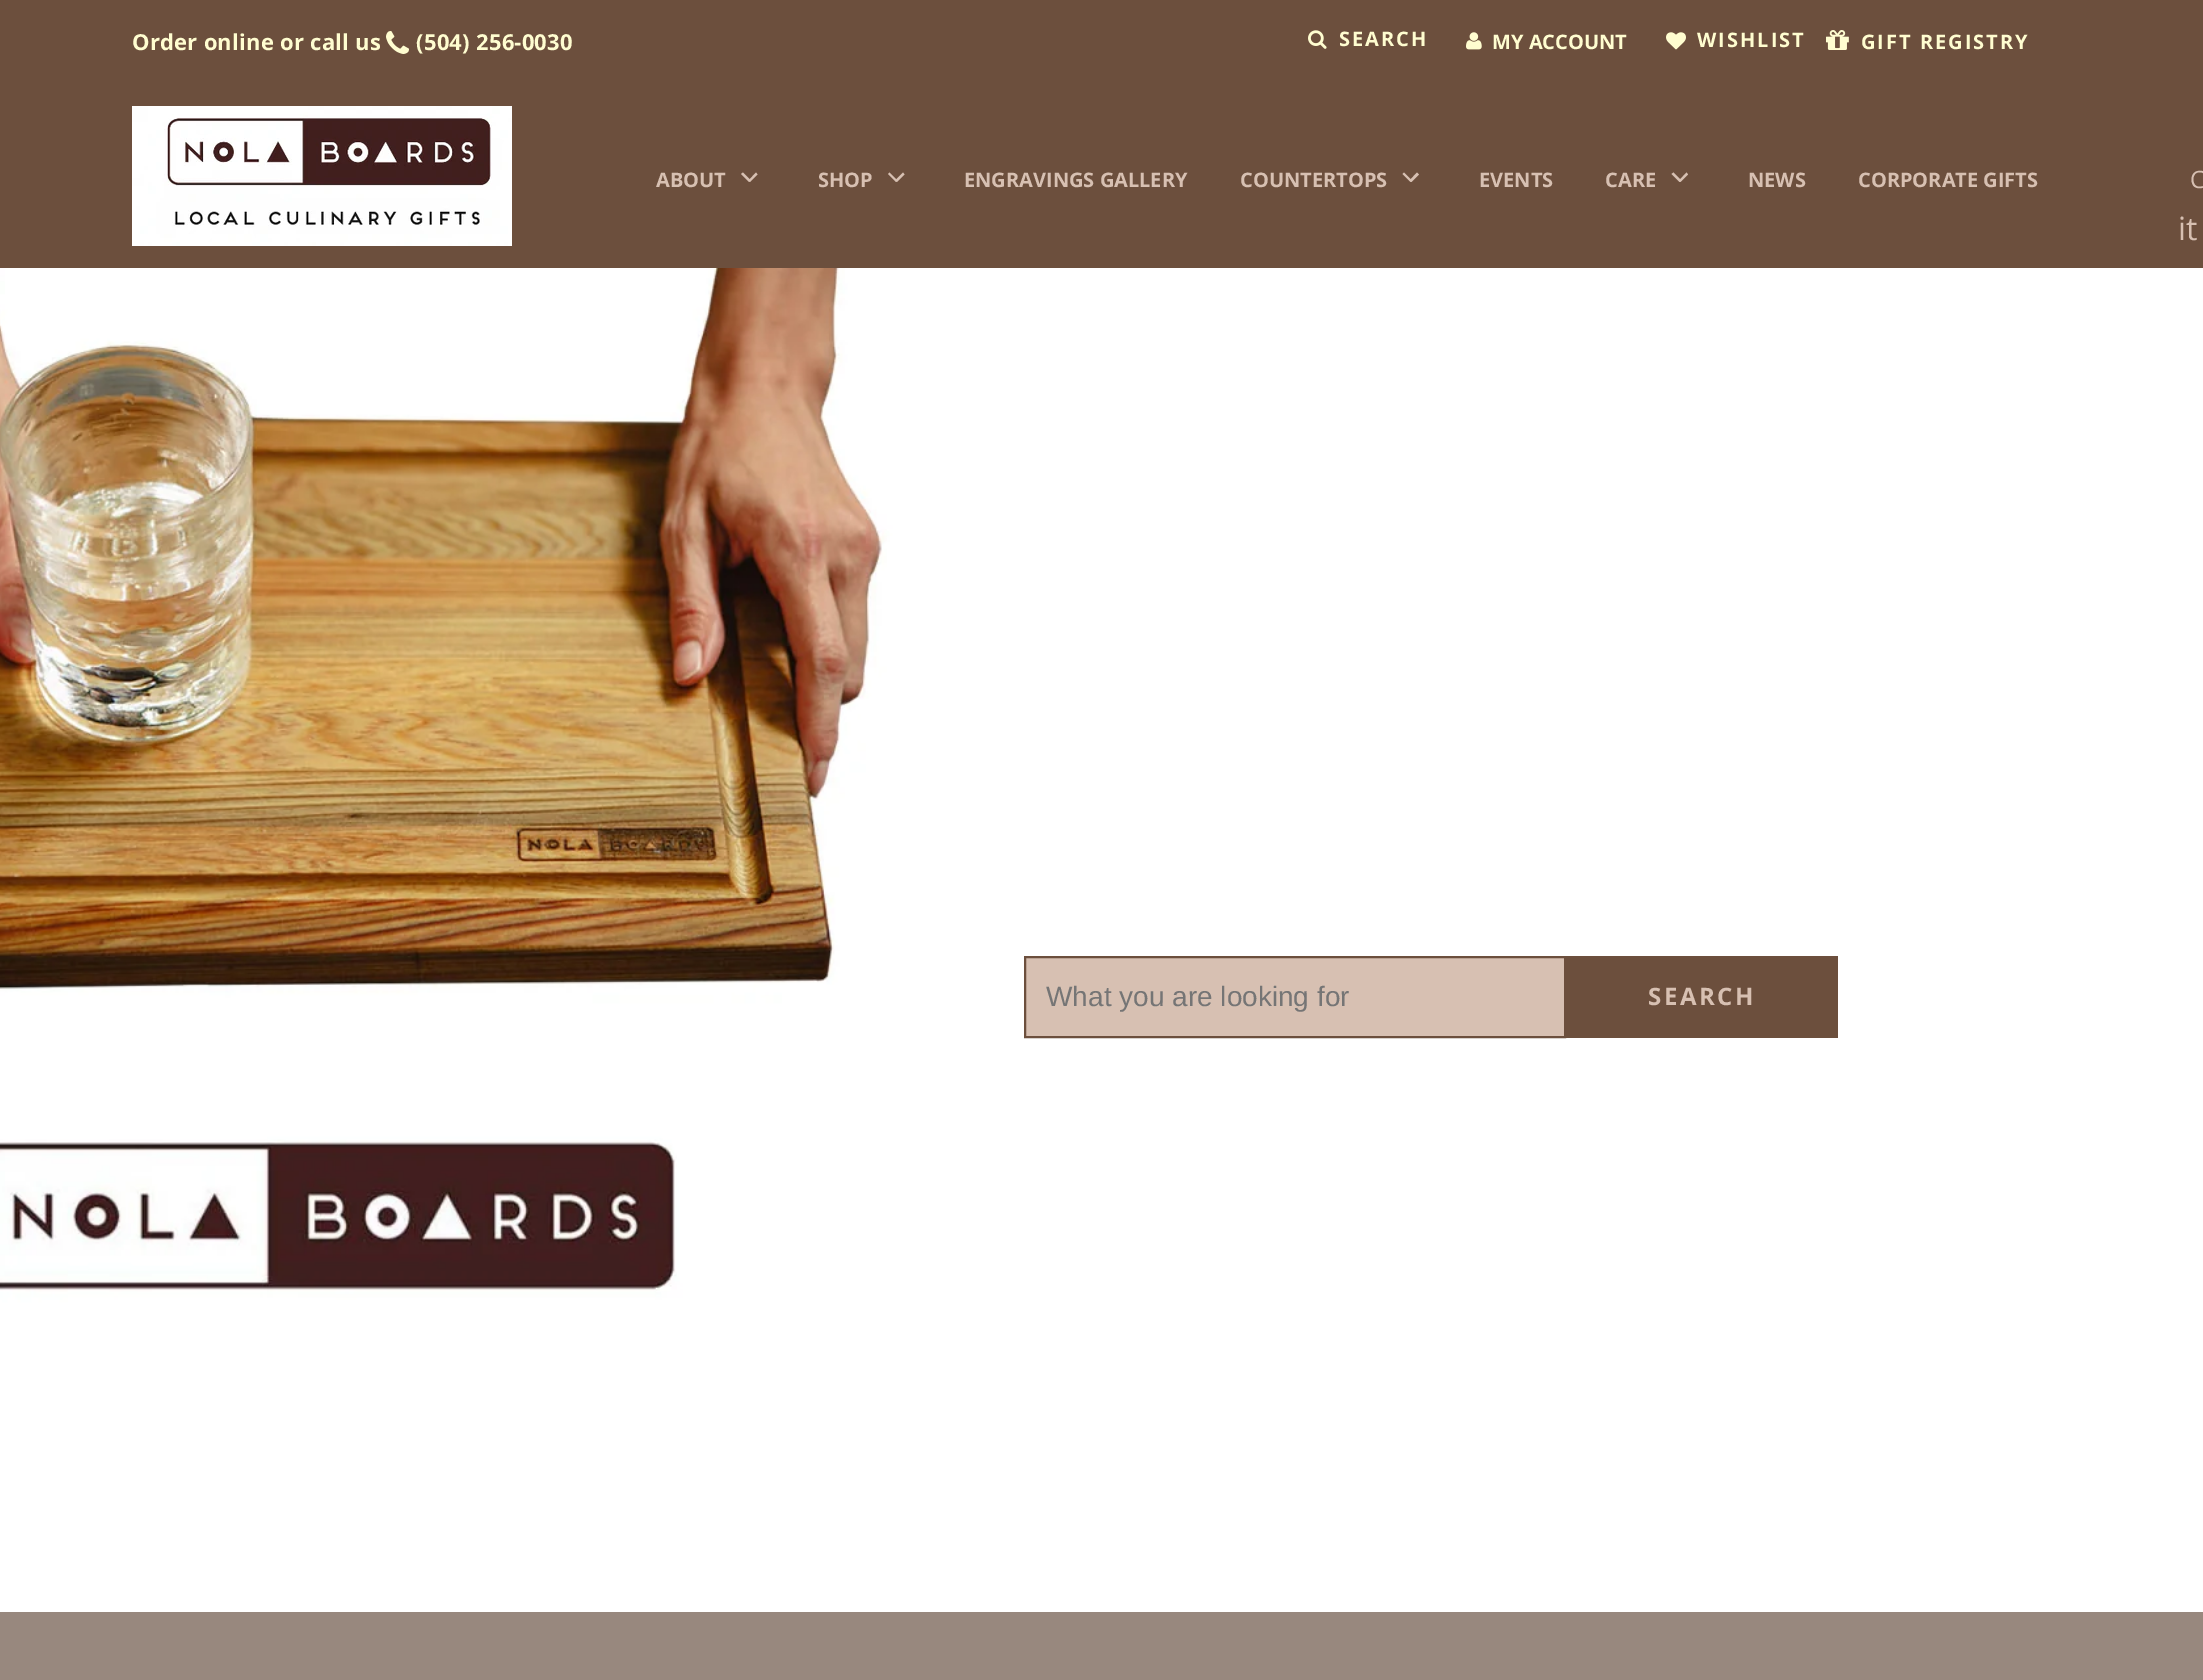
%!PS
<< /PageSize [2203 1680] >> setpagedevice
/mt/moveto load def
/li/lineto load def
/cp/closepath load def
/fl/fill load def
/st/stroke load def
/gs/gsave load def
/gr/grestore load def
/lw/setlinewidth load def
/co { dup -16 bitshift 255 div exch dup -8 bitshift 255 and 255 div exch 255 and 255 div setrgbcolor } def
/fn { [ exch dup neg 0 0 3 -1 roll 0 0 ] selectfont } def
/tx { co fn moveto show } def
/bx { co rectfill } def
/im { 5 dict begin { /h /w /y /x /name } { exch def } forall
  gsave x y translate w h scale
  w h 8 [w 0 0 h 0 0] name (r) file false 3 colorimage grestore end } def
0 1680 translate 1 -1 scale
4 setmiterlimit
0 0 2203 1680 16#98887E bx
0 0 2203 268 16#6C4F3D bx
(media/1.raw) 386 31 23 23 im
(media/2.raw) 1308 30 19 19 im
(media/3.raw) 1466 32 16 18 im
(media/4.raw) 1666 32 20 18 im
(media/5.raw) 1826 30 23 20 im
(media/6.raw) 132 106 380 140 im
16#D7C0B2 co
756 172.5 mt 757.5 174.5 li 750 182 li 748.5 180.5 li cp fl
743 172.5 mt 751 180.5 li 749 182 li 741 174 li cp fl
903 172.5 mt 904.5 174.5 li 897 182 li 895 180.5 li cp fl
889.5 172.5 mt 897.5 180.5 li 896 182 li 888 174 li cp fl
1417 172.5 mt 1419 174.5 li 1411.5 182 li 1409.5 180.5 li cp fl
1404 172.5 mt 1412 180.5 li 1410.5 182 li 1402.5 174 li cp fl
1686.5 172.5 mt 1688 174.5 li 1680.5 182 li 1679 180.5 li cp fl
1673.5 172.5 mt 1681.5 180.5 li 1679.5 182 li 1671.5 174 li cp fl
(media/7.raw) 0 268 2203 1344 im
1025 957 mt 1565 957 li 1565 1037 li 1025 1037 li cp gs fl gr
16#6C4F3D co
2 lw
st
1566 956 272 82 16#6C4F3D bx
/OpenSans-Bold 22 fn
16#FFFDD0 co
132 50 mt .25 0 (Order online or call us) ashow
416 50 mt .25 0 (\(504\) 256-0030) ashow
/OpenSans-Bold 20 fn
1339 46 mt 2 0 (SEARCH) ashow
(MY ACCOUNT) 1492 49 /OpenSans-Bold 20 16#FFFDD0 tx
1697 47 mt 2 0 (WISHLIST) ashow
1861 49 mt 2 0 (GIFT REGISTRY) ashow
(ABOUT) 656 187 /OpenSans-Bold 20 16#D7C0B2 tx
(SHOP) 818 187 /OpenSans-Bold 20 16#D7C0B2 tx
(ENGRAVINGS GALLERY) 964 187 /OpenSans-Bold 20 16#D7C0B2 tx
(COUNTERTOPS) 1240 187 /OpenSans-Bold 20 16#D7C0B2 tx
(EVENTS) 1479 187 /OpenSans-Bold 20 16#D7C0B2 tx
(CARE) 1605 187 /OpenSans-Bold 20 16#D7C0B2 tx
(NEWS) 1748 187 /OpenSans-Bold 20 16#D7C0B2 tx
(CORPORATE GIFTS) 1858 187 /OpenSans-Bold 20 16#D7C0B2 tx
(C) 2190 188 /OpenSans-Regular 24 16#D7C0B2 tx
(it) 2178 240 /OpenSans-Regular 32 16#D7C0B2 tx
(What you are looking for) 1046 1006 /LiberationSans-Regular 28 16#757575 tx
/OpenSans-Bold 24 fn
16#D7C0B2 co
1648 1005 mt 2.5 0 (SEARCH) ashow
showpage
